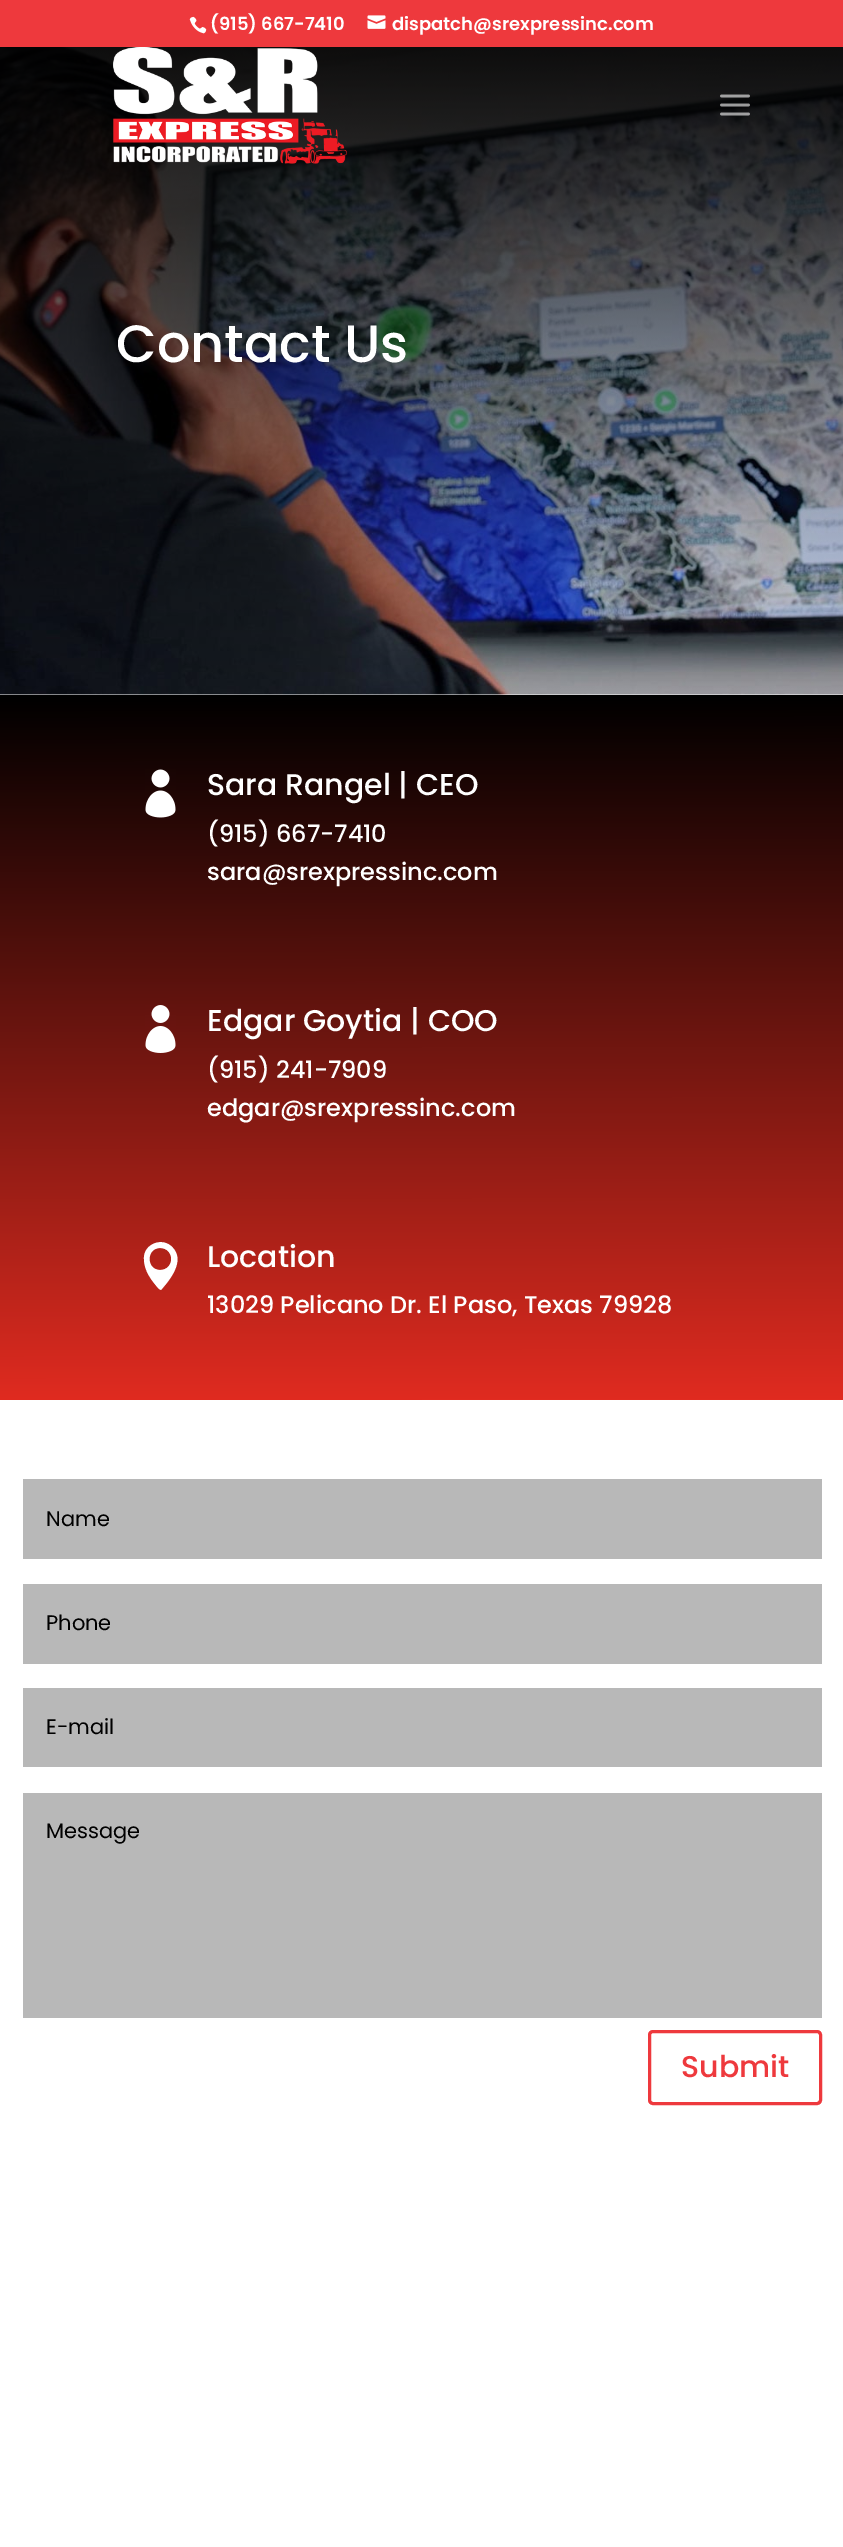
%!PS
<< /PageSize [843 2547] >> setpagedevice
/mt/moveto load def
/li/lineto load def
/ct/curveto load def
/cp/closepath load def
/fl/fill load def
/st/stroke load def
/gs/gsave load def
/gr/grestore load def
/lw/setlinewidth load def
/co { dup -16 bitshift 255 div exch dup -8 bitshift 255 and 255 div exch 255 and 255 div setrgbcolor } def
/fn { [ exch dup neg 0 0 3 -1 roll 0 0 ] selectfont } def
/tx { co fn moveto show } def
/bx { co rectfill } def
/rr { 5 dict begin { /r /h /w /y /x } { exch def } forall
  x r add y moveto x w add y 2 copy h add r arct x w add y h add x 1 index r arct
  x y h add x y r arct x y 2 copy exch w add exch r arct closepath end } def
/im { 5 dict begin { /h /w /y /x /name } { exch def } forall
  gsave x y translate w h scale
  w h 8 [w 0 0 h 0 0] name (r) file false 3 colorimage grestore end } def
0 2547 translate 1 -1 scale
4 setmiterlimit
0 0 843 2547 16#FFFFFF bx
0 0 843 47 16#EE393D bx
(media/1.raw) 189 16 18 18 im
(media/2.raw) 367 15 19 14 im
(media/5.raw) 0 47 843 648 im
(media/3.raw) 113 47 234 117 im
(media/4.raw) 720 94 30 22 im
gs 0 695 mt 843 695 li 843 1400 li 0 1400 li cp clip newpath
<< /ShadingType 2 /ColorSpace /DeviceRGB /Coords [421 695 422 1400] /Extend [true true] /Function << /FunctionType 2 /Domain [0 1] /C0 [0 0 0] /C1 [.878 .169 .125] /N 1 >> >> shfill gr
(media/6.raw) 145 769 31 49 im
(media/7.raw) 145 1005 31 48 im
16#FFFFFF co
159 1289 mt 161 1290 li 166 1284 li 174 1274 183 1259 173 1248 ct 163 1236 143 1244 144 1259 ct 144 1271 152 1281 159 1289 ct cp 160 1248 mt 175 1248 175 1270 160 1270 ct 146 1270 146 1248 160 1248 ct cp fl
23 1479 799 80 16#B8B8B8 bx
23 1584 799 80 16#B8B8B8 bx
23 1688 799 79 16#B8B8B8 bx
23 1793 799 225 16#B8B8B8 bx
16#EE393D co
3 lw
649.5 2031.5 171 72 3.5 rr st
(\(915\) 667-7410) 210 30 /Poppins-SemiBold 18 16#FFFFFF tx
(dispatch@srexpressinc.com) 392 30 /Poppins-SemiBold 18 16#FFFFFF tx
(Contact Us) 116 362 /Poppins-Medium 52.5 16#FFFFFF tx
(Sara Rangel | CEO) 207 795 /Poppins-Medium 30 16#FFFFFF tx
(\(915\) 667-7410) 207 842 /Poppins-Medium 24 16#FFFFFF tx
(sara@srexpressinc.com) 207 880 /Poppins-Medium 24 16#FFFFFF tx
(Edgar Goytia | COO) 207 1031 /Poppins-Medium 30 16#FFFFFF tx
(\(915\) 241-7909) 207 1078 /Poppins-Medium 24 16#FFFFFF tx
(edgar@srexpressinc.com) 207 1116 /Poppins-Medium 24 16#FFFFFF tx
(Location) 207 1267 /Poppins-Medium 30 16#FFFFFF tx
(13029 Pelicano Dr. El Paso, Texas 79928) 207 1313 /Poppins-Medium 24 16#FFFFFF tx
(Name) 46 1526 /Poppins-Regular 21 16#000000 tx
(Phone) 46 1630 /Poppins-Regular 21 16#000000 tx
(E-mail) 46 1734 /Poppins-Regular 21 16#000000 tx
(Message) 46 1838 /Poppins-Regular 21 16#000000 tx
(Submit) 681 2077 /Poppins-Medium 30 16#EE393D tx
showpage
